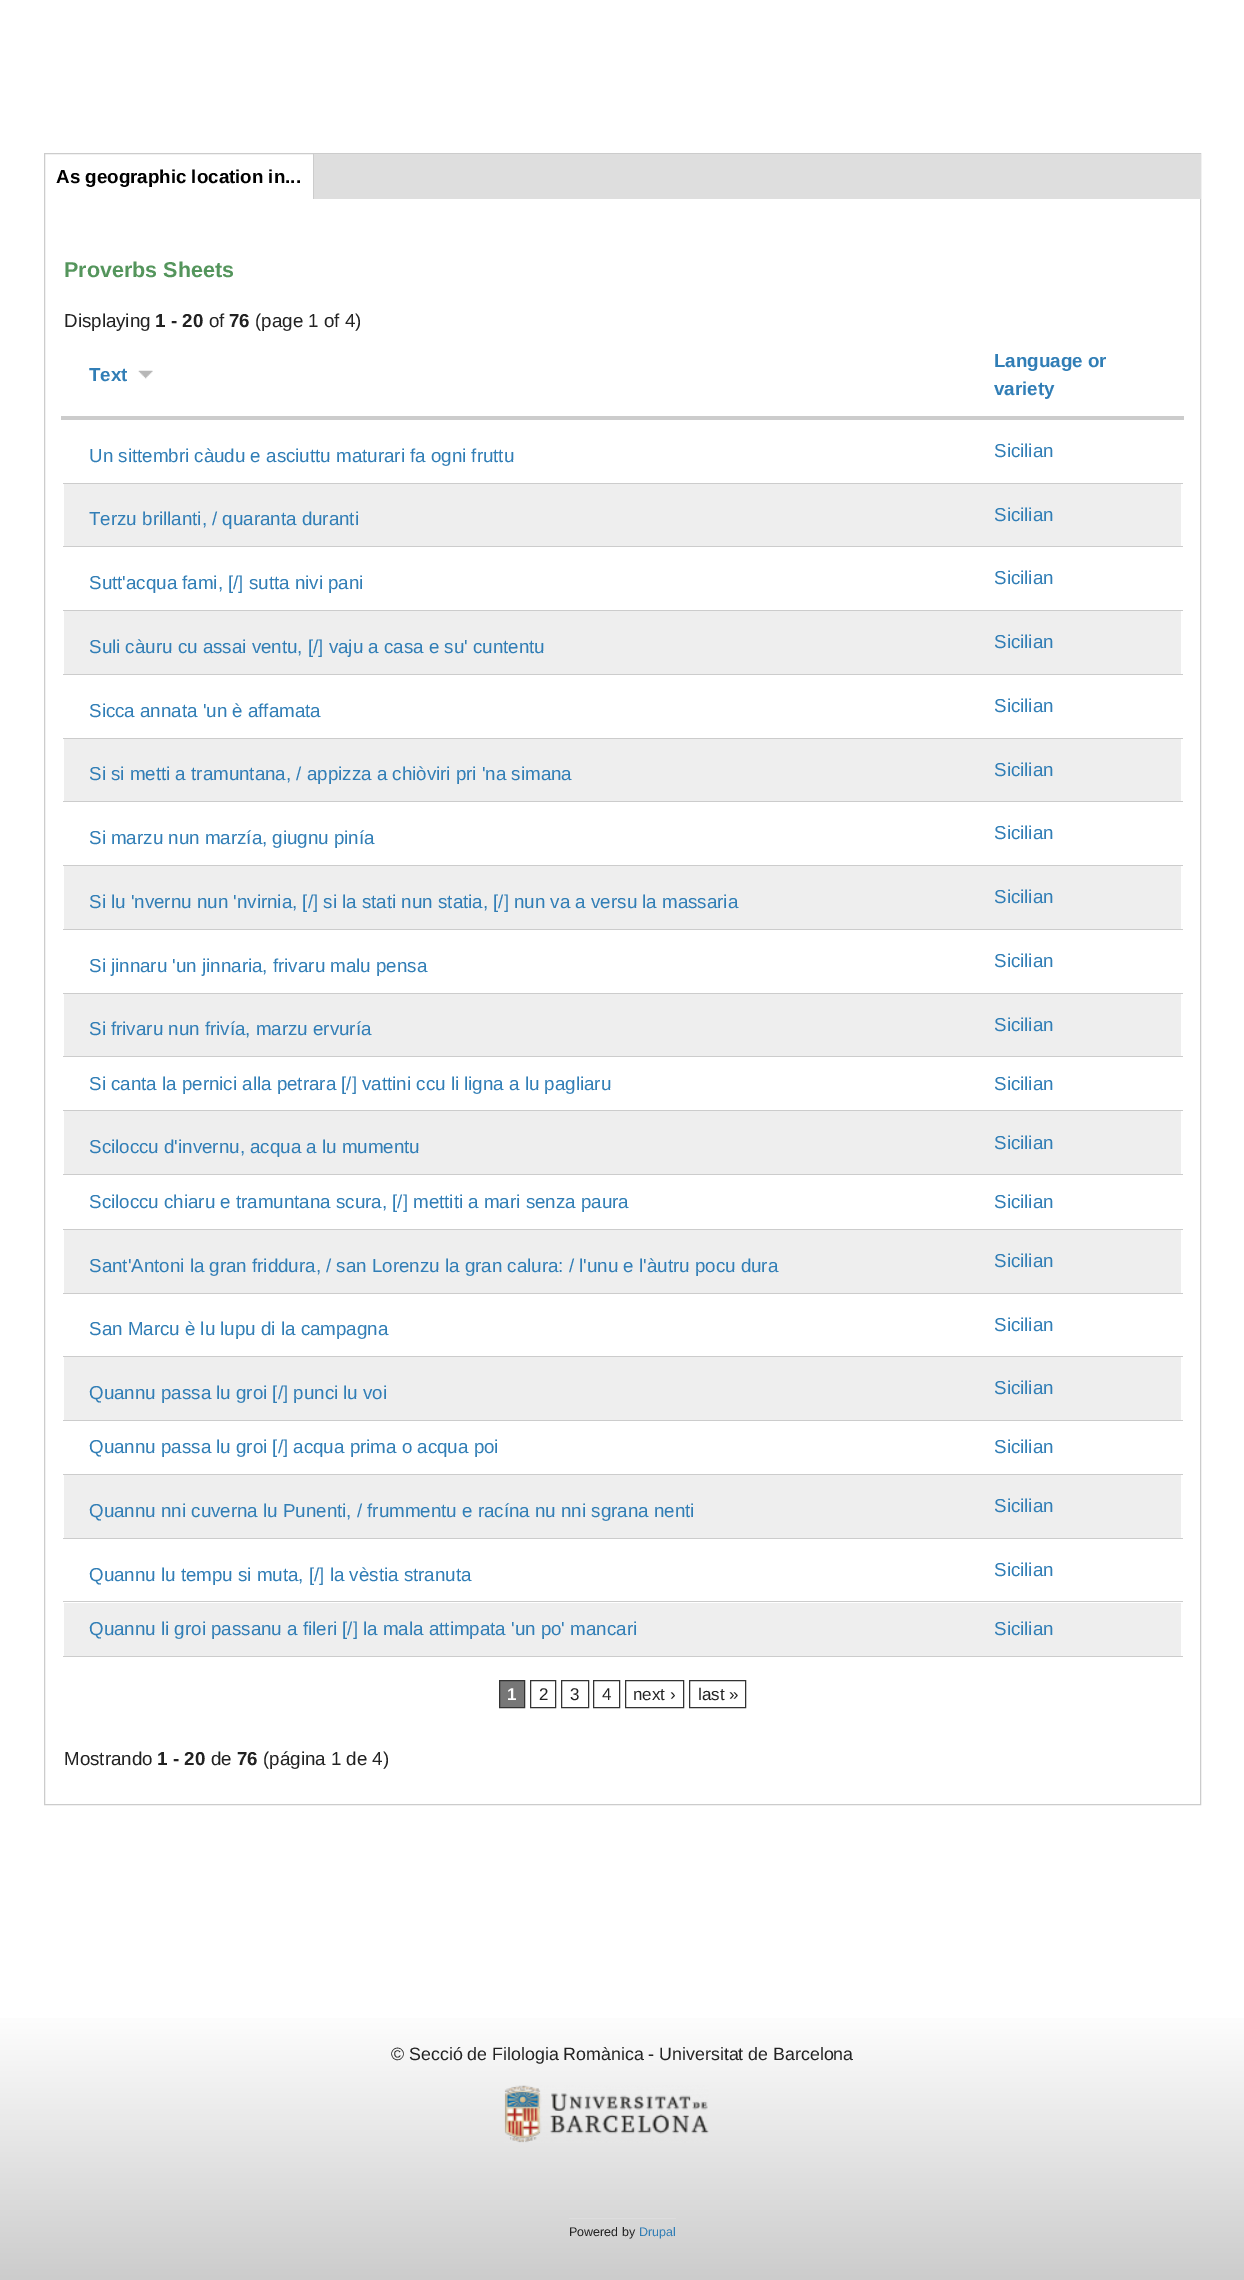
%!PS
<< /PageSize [1244 2280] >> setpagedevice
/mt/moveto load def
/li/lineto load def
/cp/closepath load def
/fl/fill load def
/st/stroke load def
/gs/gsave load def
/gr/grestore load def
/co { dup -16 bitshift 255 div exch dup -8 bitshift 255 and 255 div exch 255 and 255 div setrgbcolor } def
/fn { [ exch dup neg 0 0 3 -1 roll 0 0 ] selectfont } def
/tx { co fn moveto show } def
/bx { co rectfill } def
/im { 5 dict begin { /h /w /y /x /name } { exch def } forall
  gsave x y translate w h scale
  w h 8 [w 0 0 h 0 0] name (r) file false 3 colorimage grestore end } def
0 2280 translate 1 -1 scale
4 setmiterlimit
0 0 1244 2280 16#FFFFFF bx
16#CCCCCC co
44.5 153.5 1156 1651 rectstroke
314 154 887 45 16#DEDEDE bx
313 154 1 45 16#CCCCCC bx
(media/1.raw) 138 370 15 9 im
61 416 1123 4 16#CCCCCC bx
63 483 1120 1 16#CCCCCC bx
64 484 1117 62 16#EEEEEE bx
63 546 1120 1 16#CCCCCC bx
63 610 1120 1 16#CCCCCC bx
64 611 1117 63 16#EEEEEE bx
63 674 1120 1 16#CCCCCC bx
63 738 1120 1 16#CCCCCC bx
64 739 1117 62 16#EEEEEE bx
63 801 1120 1 16#CCCCCC bx
63 865 1120 1 16#CCCCCC bx
64 866 1117 63 16#EEEEEE bx
63 929 1120 1 16#CCCCCC bx
63 993 1120 1 16#CCCCCC bx
64 994 1117 62 16#EEEEEE bx
63 1056 1120 1 16#CCCCCC bx
63 1110 1120 1 16#CCCCCC bx
64 1111 1117 63 16#EEEEEE bx
63 1174 1120 1 16#CCCCCC bx
63 1229 1120 1 16#CCCCCC bx
64 1230 1117 63 16#EEEEEE bx
63 1293 1120 1 16#CCCCCC bx
63 1356 1120 1 16#CCCCCC bx
64 1357 1117 63 16#EEEEEE bx
63 1420 1120 1 16#CCCCCC bx
63 1474 1120 1 16#CCCCCC bx
64 1475 1117 63 16#EEEEEE bx
63 1538 1120 1 16#CCCCCC bx
63 1601 1120 1 16#CCCCCC bx
64 1603 1117 53 16#EEEEEE bx
63 1656 1120 1 16#CCCCCC bx
16#777777 co
499.5 1680.5 mt 524.5 1680.5 li 524.5 1707.5 li 499.5 1707.5 li cp gs fl gr
16#333333 co
st
530.5 1680.5 25 27 rectstroke
561.5 1680.5 27 27 rectstroke
593.5 1680.5 26 27 rectstroke
625.5 1680.5 58 27 rectstroke
689.5 1680.5 56 27 rectstroke
gs 0 2018 mt 1244 2018 li 1244 2280 li 0 2280 li cp clip newpath
<< /ShadingType 2 /ColorSpace /DeviceRGB /Coords [0 2005 0 2280] /Extend [true true] /Function << /FunctionType 2 /Domain [0 1] /C0 [1 1 1] /C1 [.8 .8 .8] /N 1 >> >> shfill gr
(media/2.raw) 504 2085 205 58 im
569 2218 107 1 16#DDDDDD bx
(As geographic location in...) 56 183 /LiberationSans-Bold 18.75 16#000000 tx
(Proverbs Sheets) 64 277 /LiberationSans-Bold 21.5 16#54955C tx
(Displaying) 64 327 /LiberationSans-Regular 18.75 16#222222 tx
(1 - 20) 155 327 /LiberationSans-Bold 18.75 16#222222 tx
(of) 209 327 /LiberationSans-Regular 18.75 16#222222 tx
(76) 229 327 /LiberationSans-Bold 18.75 16#222222 tx
(\(page 1 of 4\)) 255 327 /LiberationSans-Regular 18.75 16#222222 tx
(Text) 89 381 /LiberationSans-Bold 18.75 16#317EB6 tx
(Language or) 994 367 /LiberationSans-Bold 18.75 16#317EB6 tx
(variety) 994 395 /LiberationSans-Bold 18.75 16#317EB6 tx
(Un sittembri càudu e asciuttu maturari fa ogni fruttu) 89 462 /LiberationSans-Regular 18.75 16#317EB6 tx
(Sicilian) 994 457 /LiberationSans-Regular 18.75 16#317EB6 tx
(Terzu brillanti, / quaranta duranti) 89 525 /LiberationSans-Regular 18.75 16#317EB6 tx
(Sicilian) 994 521 /LiberationSans-Regular 18.75 16#317EB6 tx
(Sutt'acqua fami, [/] sutta nivi pani) 89 589 /LiberationSans-Regular 18.75 16#317EB6 tx
(Sicilian) 994 584 /LiberationSans-Regular 18.75 16#317EB6 tx
(Suli càuru cu assai ventu, [/] vaju a casa e su' cuntentu) 89 653 /LiberationSans-Regular 18.75 16#317EB6 tx
(Sicilian) 994 648 /LiberationSans-Regular 18.75 16#317EB6 tx
(Sicca annata 'un è affamata) 89 717 /LiberationSans-Regular 18.75 16#317EB6 tx
(Sicilian) 994 712 /LiberationSans-Regular 18.75 16#317EB6 tx
(Si si metti a tramuntana, / appizza a chiòviri pri 'na simana) 89 780 /LiberationSans-Regular 18.75 16#317EB6 tx
(Sicilian) 994 776 /LiberationSans-Regular 18.75 16#317EB6 tx
(Si marzu nun marzía, giugnu pinía) 89 844 /LiberationSans-Regular 18.75 16#317EB6 tx
(Sicilian) 994 839 /LiberationSans-Regular 18.75 16#317EB6 tx
(Si lu 'nvernu nun 'nvirnia, [/] si la stati nun statia, [/] nun va a versu la massaria) 89 908 /LiberationSans-Regular 18.75 16#317EB6 tx
(Sicilian) 994 903 /LiberationSans-Regular 18.75 16#317EB6 tx
(Si jinnaru 'un jinnaria, frivaru malu pensa) 89 972 /LiberationSans-Regular 18.75 16#317EB6 tx
(Sicilian) 994 967 /LiberationSans-Regular 18.75 16#317EB6 tx
(Si frivaru nun frivía, marzu ervuría) 89 1035 /LiberationSans-Regular 18.75 16#317EB6 tx
(Sicilian) 994 1031 /LiberationSans-Regular 18.75 16#317EB6 tx
(Si canta la pernici alla petrara [/] vattini ccu li ligna a lu pagliaru) 89 1090 /LiberationSans-Regular 18.75 16#317EB6 tx
(Sicilian) 994 1090 /LiberationSans-Regular 18.75 16#317EB6 tx
(Sciloccu d'invernu, acqua a lu mumentu) 89 1153 /LiberationSans-Regular 18.75 16#317EB6 tx
(Sicilian) 994 1149 /LiberationSans-Regular 18.75 16#317EB6 tx
(Sciloccu chiaru e tramuntana scura, [/] mettiti a mari senza paura) 89 1208 /LiberationSans-Regular 18.75 16#317EB6 tx
(Sicilian) 994 1208 /LiberationSans-Regular 18.75 16#317EB6 tx
(Sant'Antoni la gran friddura, / san Lorenzu la gran calura: / l'unu e l'àutru pocu dura) 89 1272 /LiberationSans-Regular 18.75 16#317EB6 tx
(Sicilian) 994 1267 /LiberationSans-Regular 18.75 16#317EB6 tx
(San Marcu è lu lupu di la campagna) 89 1335 /LiberationSans-Regular 18.75 16#317EB6 tx
(Sicilian) 994 1331 /LiberationSans-Regular 18.75 16#317EB6 tx
(Quannu passa lu groi [/] punci lu voi) 89 1399 /LiberationSans-Regular 18.75 16#317EB6 tx
(Sicilian) 994 1394 /LiberationSans-Regular 18.75 16#317EB6 tx
(Quannu passa lu groi [/] acqua prima o acqua poi) 89 1453 /LiberationSans-Regular 18.75 16#317EB6 tx
(Sicilian) 994 1453 /LiberationSans-Regular 18.75 16#317EB6 tx
(Quannu nni cuverna lu Punenti, / frummentu e racína nu nni sgrana nenti) 89 1517 /LiberationSans-Regular 18.75 16#317EB6 tx
(Sicilian) 994 1512 /LiberationSans-Regular 18.75 16#317EB6 tx
(Quannu lu tempu si muta, [/] la vèstia stranuta) 89 1581 /LiberationSans-Regular 18.75 16#317EB6 tx
(Sicilian) 994 1576 /LiberationSans-Regular 18.75 16#317EB6 tx
(Quannu li groi passanu a fileri [/] la mala attimpata 'un po' mancari) 89 1635 /LiberationSans-Regular 18.75 16#317EB6 tx
(Sicilian) 994 1635 /LiberationSans-Regular 18.75 16#317EB6 tx
(1) 507 1700 /LiberationSans-Bold 17 16#FFFFFF tx
(2) 539 1700 /LiberationSans-Regular 17 16#222222 tx
(3) 570 1700 /LiberationSans-Regular 17 16#222222 tx
(4) 602 1700 /LiberationSans-Regular 17 16#222222 tx
(next ›) 633 1700 /LiberationSans-Regular 17 16#222222 tx
(last ») 698 1700 /LiberationSans-Regular 17 16#222222 tx
(Mostrando) 64 1765 /LiberationSans-Regular 18.75 16#222222 tx
(1 - 20) 157 1765 /LiberationSans-Bold 18.75 16#222222 tx
(de) 211 1765 /LiberationSans-Regular 18.75 16#222222 tx
(76) 237 1765 /LiberationSans-Bold 18.75 16#222222 tx
(\(página 1 de 4\)) 263 1765 /LiberationSans-Regular 18.75 16#222222 tx
(© Secció de Filologia Romànica - Universitat de Barcelona) 391 2060 /LiberationSans-Regular 17.8 16#222222 tx
(Powered by) 569 2236 /LiberationSans-Regular 12.5 16#222222 tx
(Drupal) 639 2236 /LiberationSans-Regular 12.5 16#317EB6 tx
showpage
